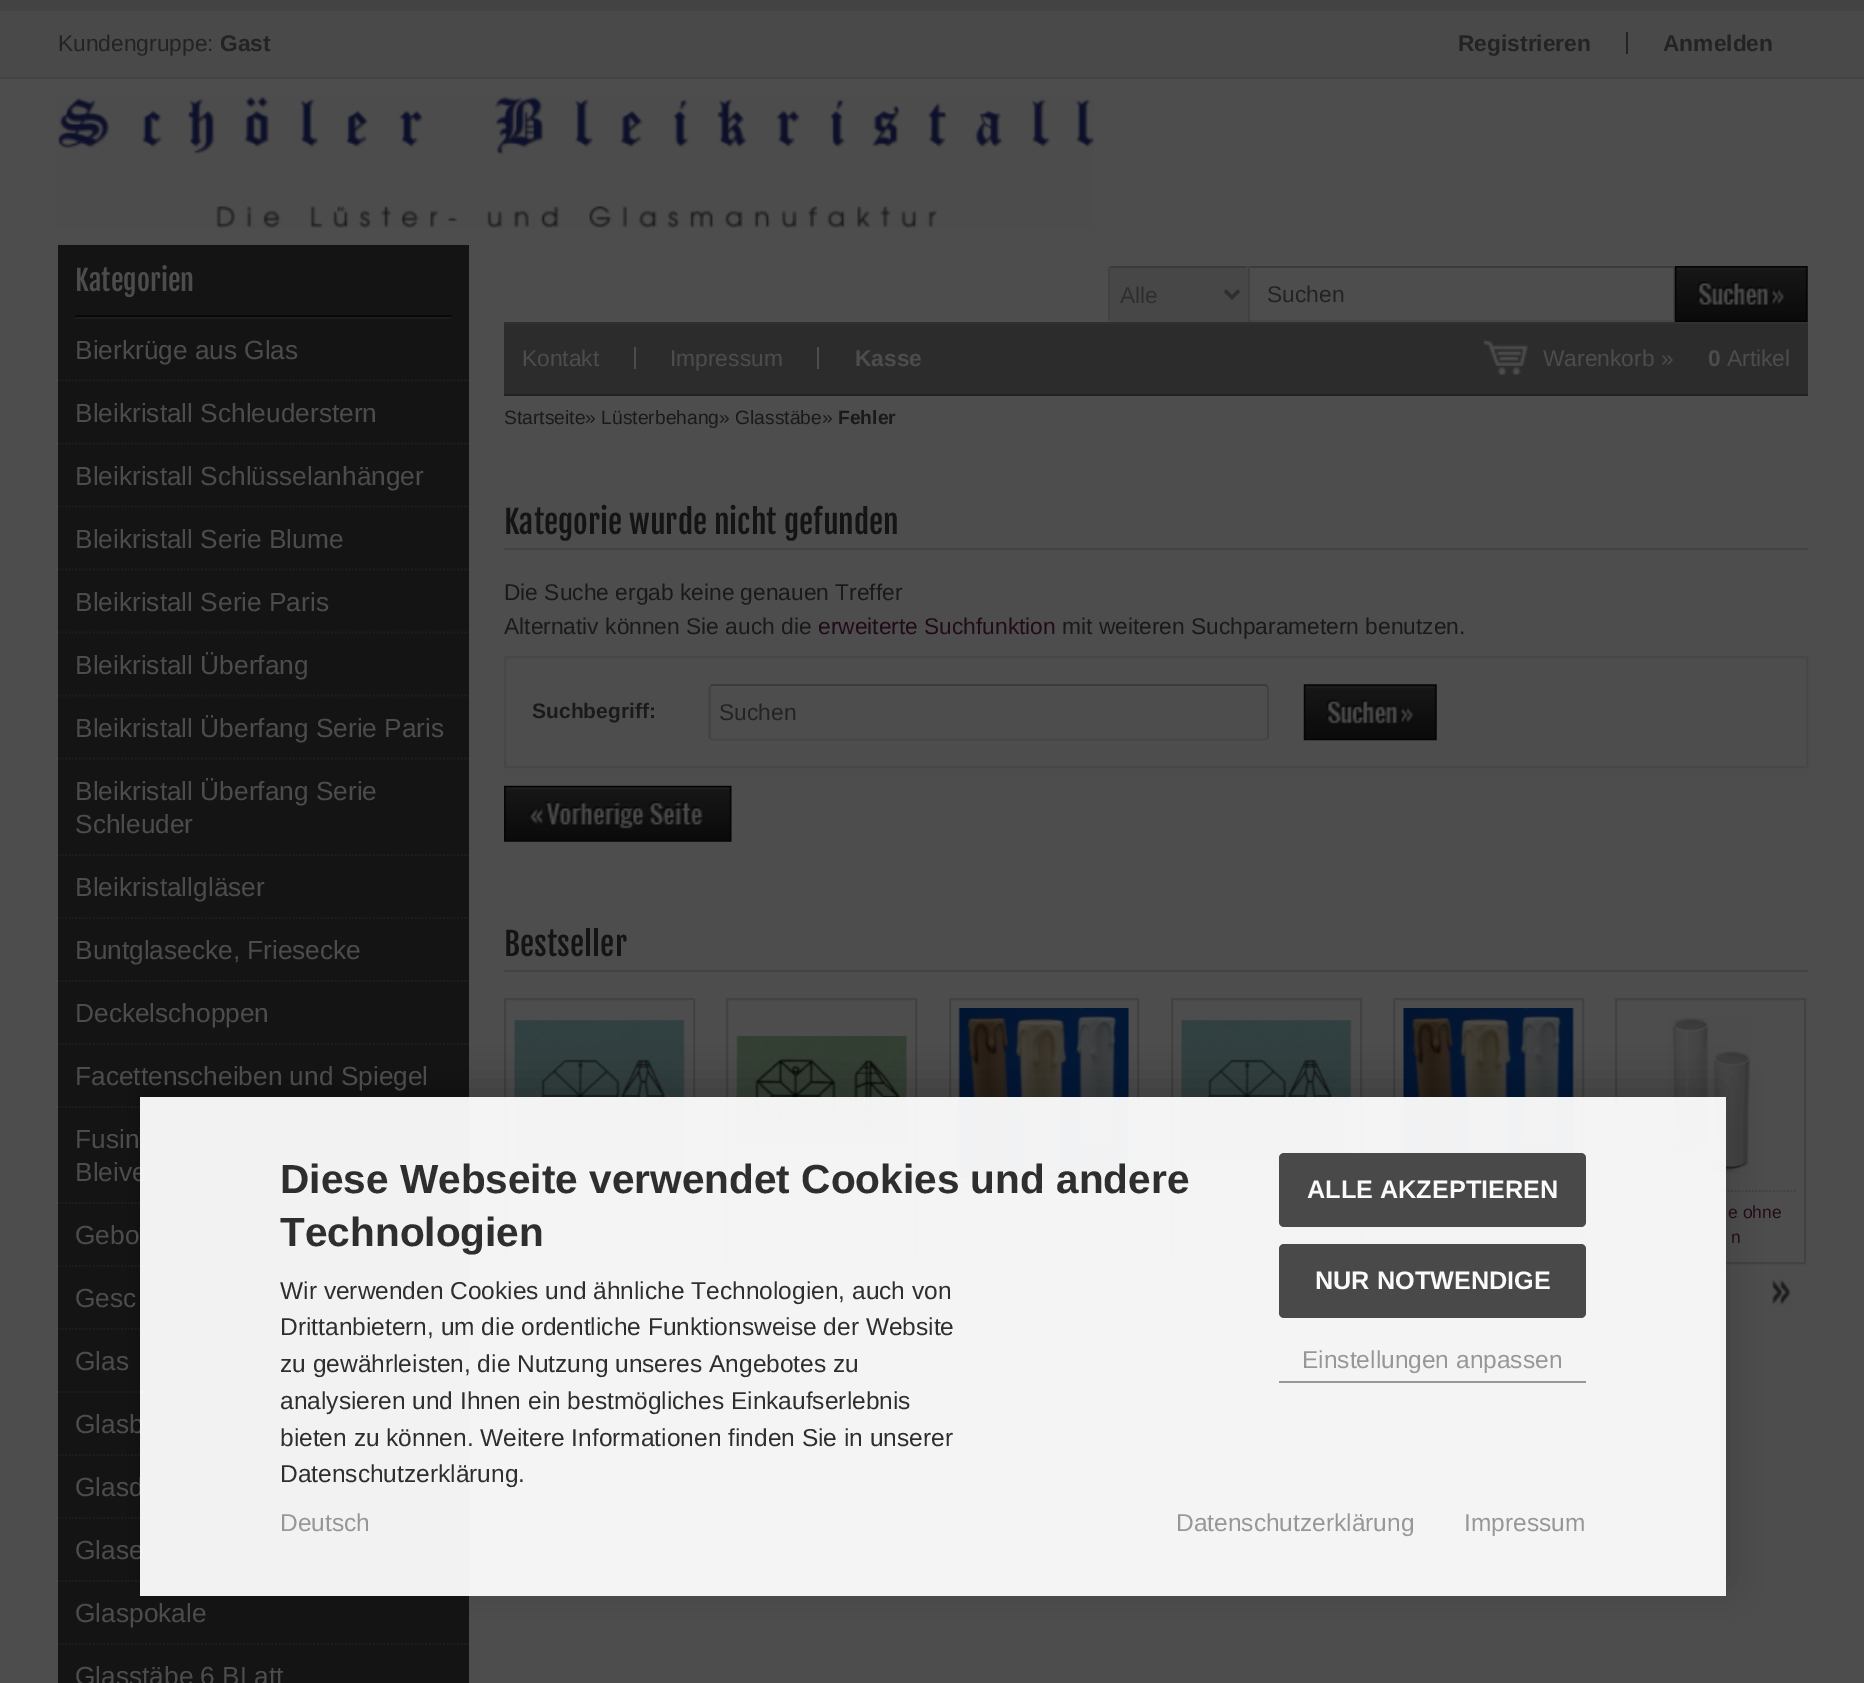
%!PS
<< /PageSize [1864 1683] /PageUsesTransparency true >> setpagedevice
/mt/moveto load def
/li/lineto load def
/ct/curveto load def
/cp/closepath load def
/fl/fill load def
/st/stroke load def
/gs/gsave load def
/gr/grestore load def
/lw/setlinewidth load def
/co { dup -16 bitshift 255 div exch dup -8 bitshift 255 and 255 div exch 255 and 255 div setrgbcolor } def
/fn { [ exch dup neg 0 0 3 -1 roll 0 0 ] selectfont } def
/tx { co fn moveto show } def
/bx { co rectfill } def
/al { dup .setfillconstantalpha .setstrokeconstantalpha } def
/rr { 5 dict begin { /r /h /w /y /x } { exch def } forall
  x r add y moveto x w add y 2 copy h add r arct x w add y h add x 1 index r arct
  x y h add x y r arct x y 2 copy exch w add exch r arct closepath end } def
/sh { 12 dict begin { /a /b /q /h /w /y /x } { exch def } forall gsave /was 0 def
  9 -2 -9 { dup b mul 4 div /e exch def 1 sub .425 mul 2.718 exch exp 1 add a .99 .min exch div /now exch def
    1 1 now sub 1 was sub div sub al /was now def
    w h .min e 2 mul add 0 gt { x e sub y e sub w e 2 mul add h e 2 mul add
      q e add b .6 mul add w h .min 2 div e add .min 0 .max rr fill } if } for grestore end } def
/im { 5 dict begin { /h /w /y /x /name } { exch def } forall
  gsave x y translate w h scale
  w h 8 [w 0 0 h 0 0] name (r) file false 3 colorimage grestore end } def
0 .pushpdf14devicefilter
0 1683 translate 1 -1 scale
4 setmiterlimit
0 0 1864 1683 16#4D4D4D bx
0 11 1864 66 16#494949 bx
0 0 1864 11 16#434343 bx
0 77 1864 2 16#434343 bx
1626 32 2 22 16#222222 bx
58 245 411 1438 16#141414 bx
75 317 377 2 16#1C1C1C bx
75 315 377 2 16#090909 bx
16#1E1E1E co
1.8 lw
[1.75 1.75] 0 setdash
58 380.5 mt 469 380.5 li st
58 443.5 mt 469 443.5 li st
58 506.5 mt 469 506.5 li st
58 569.5 mt 469 569.5 li st
58 632.5 mt 469 632.5 li st
58 695.5 mt 469 695.5 li st
58 758.5 mt 469 758.5 li st
58 855 mt 469 855 li st
58 918 mt 469 918 li st
58 981 mt 469 981 li st
58 1044 mt 469 1044 li st
58 1107 mt 469 1107 li st
58 1203 mt 469 1203 li st
58 1266 mt 469 1266 li st
58 1329 mt 469 1329 li st
58 1392 mt 469 1392 li st
58 1455 mt 469 1455 li st
58 1518 mt 469 1518 li st
58 1581 mt 469 1581 li st
58 1644 mt 469 1644 li st
504 324 1304 70 16#2C2C2C bx
504 322 1304 2 16#303030 bx
504 394 1304 2 16#212121 bx
634 347 2 22 16#4D4D4D bx
817 347 2 22 16#4D4D4D bx
(media/1.raw) 1484 339 44 36 im
504 548 1304 2 16#424242 bx
16#474747 co
2 lw
[] 0 setdash
505 657 1302 110 rectstroke
16#3B3B3B co
1.8 lw
710.5 686 mt 712 685 li 1265 685 li 1267 686 li st
16#414141 co
1267 686 mt 1268 687.5 li 1268 737 li 1267 738.5 li st
16#464646 co
1267 738.5 mt 1265 739.5 li 712 739.5 li 710.5 738.5 li st
16#414141 co
710.5 738.5 mt 709.5 737 li 709.5 687.5 li 710.5 686 li st
(media/2.raw) 1303 684 134 57 im
(media/3.raw) 504 785 228 57 im
504 970 1304 2 16#424242 bx
2 lw
505 999 189 264 rectstroke
(media/4.raw) 514 1020 171 146 im
1.8 lw
[1.75 1.75] 0 setdash
514.5 1191 mt 684 1191 li st
2 lw
[] 0 setdash
727 999 189 264 rectstroke
(media/5.raw) 736 1036 171 114 im
1.8 lw
[1.75 1.75] 0 setdash
737 1191 mt 906.5 1191 li st
2 lw
[] 0 setdash
950 999 188 264 rectstroke
(media/6.raw) 958 1008 172 170 im
1.8 lw
[1.75 1.75] 0 setdash
959 1191 mt 1129 1191 li st
2 lw
[] 0 setdash
1172 999 189 264 rectstroke
(media/7.raw) 1181 1020 171 146 im
1.8 lw
[1.75 1.75] 0 setdash
1181 1191 mt 1351 1191 li st
2 lw
[] 0 setdash
1394 999 189 264 rectstroke
(media/8.raw) 1403 1008 171 145 im
1616 999 189 264 rectstroke
(media/9.raw) 1667 1017 84 158 im
1.8 lw
[1.75 1.75] 0 setdash
1626 1191 mt 1795.5 1191 li st
(media/10.raw) 519 1279 19 27 im
(media/11.raw) 1772 1279 19 27 im
(media/12.raw) 57 96 1037 132 im
16#474747 co
1112 266 mt 1248 266 li 1248 322 li 1112 322 li 1110 322 1108 320 1108 318 ct 1108 270 li 1108 268 1110 266 1112 266 ct cp fl
16#3B3B3B co
1111 266 mt 1109 267 li 1110 268 li 1111 268 li 1246 268 li 1248 266 li cp fl
16#474747 co
1248 266 mt 1248 322 li 1246 320 li 1246 268 li cp fl
16#414141 co
1109 267 mt 1108 270 li 1108 318 li 1109 321 li 1110 320 li 1110 268 li cp fl
16#2E2E2E co
3.5 lw
[] 0 setdash
1225 290.5 mt 1232 297.5 li 1239 290.5 li st
1248 266 427 2 16#3B3B3B bx
1673 266 2 56 16#414141 bx
1248 320 427 2 16#464646 bx
1248 266 2 56 16#414141 bx
(media/13.raw) 1674 266 134 56 im
gs
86 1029 mt 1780 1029 li 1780 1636 li 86 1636 li cp 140 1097 mt 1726 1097 li 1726 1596 li 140 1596 li cp eoclip newpath
16#000000 co
140 1083 1586 499 0 17.5 .19 sh
gr
(Kundengruppe:) 58 51 /Arimo-Regular 22.75 16#232323 tx
(Gast) 220 51 /Arimo-Bold 22.75 16#232323 tx
(Registrieren) 1458 51 /Arimo-Bold 22.75 16#232323 tx
(Anmelden) 1663 51 /Arimo-Bold 22.75 16#232323 tx
(Kategorien) 75 291 /FjallaOne-Regular 28 16#4C4C4C tx
(Bierkrüge aus Glas) 75 359 /Arimo-Regular 26.25 16#4C4C4C tx
(Bleikristall Schleuderstern) 75 422 /Arimo-Regular 26.25 16#4C4C4C tx
(Bleikristall Schlüsselanhänger) 75 485 /Arimo-Regular 26.25 16#4C4C4C tx
(Bleikristall Serie Blume) 75 548 /Arimo-Regular 26.25 16#4C4C4C tx
(Bleikristall Serie Paris) 75 611 /Arimo-Regular 26.25 16#4C4C4C tx
(Bleikristall Überfang) 75 674 /Arimo-Regular 26.25 16#4C4C4C tx
(Bleikristall Überfang Serie Paris) 75 737 /Arimo-Regular 26.25 16#4C4C4C tx
(Bleikristall Überfang Serie) 75 800 /Arimo-Regular 26.25 16#4C4C4C tx
(Schleuder) 75 833 /Arimo-Regular 26.25 16#4C4C4C tx
(Bleikristallgläser) 75 896 /Arimo-Regular 26.25 16#4C4C4C tx
(Buntglasecke, Friesecke) 75 959 /Arimo-Regular 26.25 16#4C4C4C tx
(Deckelschoppen) 75 1022 /Arimo-Regular 26.25 16#4C4C4C tx
(Facettenscheiben und Spiegel) 75 1085 /Arimo-Regular 26.25 16#4C4C4C tx
(Fusin) 75 1148 /Arimo-Regular 26.25 16#4C4C4C tx
(Bleive) 75 1181 /Arimo-Regular 26.25 16#4C4C4C tx
(Gebo) 75 1244 /Arimo-Regular 26.25 16#4C4C4C tx
(Gesc) 75 1307 /Arimo-Regular 26.25 16#4C4C4C tx
(Glas) 75 1370 /Arimo-Regular 26.25 16#4C4C4C tx
(Glasb) 75 1433 /Arimo-Regular 26.25 16#4C4C4C tx
(Glasd) 75 1496 /Arimo-Regular 26.25 16#4C4C4C tx
(Glase) 75 1559 /Arimo-Regular 26.25 16#4C4C4C tx
(Glaspokale) 75 1622 /Arimo-Regular 26.25 16#4C4C4C tx
(Glasstäbe 6 BLatt) 75 1685 /Arimo-Regular 26.25 16#4C4C4C tx
(Kontakt) 522 366 /Arimo-Regular 22.75 16#4C4C4C tx
(Impressum) 670 366 /Arimo-Regular 22.75 16#4C4C4C tx
(Kasse) 855 366 /Arimo-Bold 22.75 16#4C4C4C tx
(Warenkorb ») 1543 366 /Arimo-Regular 22.75 16#4C4C4C tx
(0) 1708 366 /Arimo-Bold 22.75 16#4C4C4C tx
(Artikel) 1727 366 /Arimo-Regular 22.75 16#4C4C4C tx
(Startseite» Lüsterbehang» Glasstäbe») 504 424 /Arimo-Regular 19.25 16#1A1A1A tx
(Fehler) 838 424 /Arimo-Bold 19.25 16#1A1A1A tx
(Kategorie wurde nicht gefunden) 504 534 /FjallaOne-Regular 31.5 16#141414 tx
(Die Suche ergab keine genauen Treffer) 504 600 /Arimo-Regular 22.75 16#1A1A1A tx
(Alternativ können Sie auch die) 504 634 /Arimo-Regular 22.75 16#1A1A1A tx
(erweiterte Suchfunktion) 818 634 /Arimo-Regular 22.75 16#210B18 tx
(mit weiteren Suchparametern benutzen.) 1062 634 /Arimo-Regular 22.75 16#1A1A1A tx
(Suchbegriff:) 532 718 /Arimo-Bold 21 16#1A1A1A tx
(Suchen) 719 720 /Arimo-Regular 22.75 16#232323 tx
(Bestseller) 504 956 /FjallaOne-Regular 31.5 16#141414 tx
(e ohne) 1728 1218 /Arimo-Regular 17.5 16#210B18 tx
(n) 1731 1243 /Arimo-Regular 17.5 16#210B18 tx
(Alle) 1120 303 /Arimo-Regular 22.75 16#2E2E2E tx
(Suchen) 1267 302 /Arimo-Regular 22.75 16#232323 tx
0.97 al
140 1097 1586 499 16#F9F9F9 bx
1 al
(Diese Webseite verwendet Cookies und andere) 280 1193 /Arimo-Bold 40.6 16#2E2E2E tx
(Technologien) 280 1246 /Arimo-Bold 40.6 16#2E2E2E tx
(Wir verwenden Cookies und ähnliche Technologien, auch von) 280 1299 /Arimo-Regular 24.5 16#2E2E2E tx
(Drittanbietern, um die ordentliche Funktionsweise der Website) 280 1335 /Arimo-Regular 24.5 16#2E2E2E tx
(zu gewährleisten, die Nutzung unseres Angebotes zu) 280 1372 /Arimo-Regular 24.5 16#2E2E2E tx
(analysieren und Ihnen ein bestmögliches Einkaufserlebnis) 280 1409 /Arimo-Regular 24.5 16#2E2E2E tx
(bieten zu können. Weitere Informationen finden Sie in unserer) 280 1446 /Arimo-Regular 24.5 16#2E2E2E tx
(Datenschutzerklärung.) 280 1482 /Arimo-Regular 24.5 16#2E2E2E tx
16#494949 co
1279 1153 307 74 5 rr fl
(ALLE AKZEPTIEREN) 1307 1198 /LiberationSans-Bold 25.25 16#FAFAFA tx
16#494949 co
1279 1244 307 74 5 rr fl
(NUR NOTWENDIGE) 1315 1289 /LiberationSans-Bold 25.25 16#FAFAFA tx
1279 1381 307 2 16#979797 bx
(Einstellungen anpassen) 1302 1368 /LiberationSans-Regular 24.5 16#979797 tx
(Deutsch) 280 1531 /Arimo-Regular 24.5 16#979797 tx
(Datenschutzerklärung) 1176 1531 /Arimo-Regular 24.5 16#979797 tx
(Impressum) 1464 1531 /Arimo-Regular 24.5 16#979797 tx
.poppdf14devicefilter showpage
